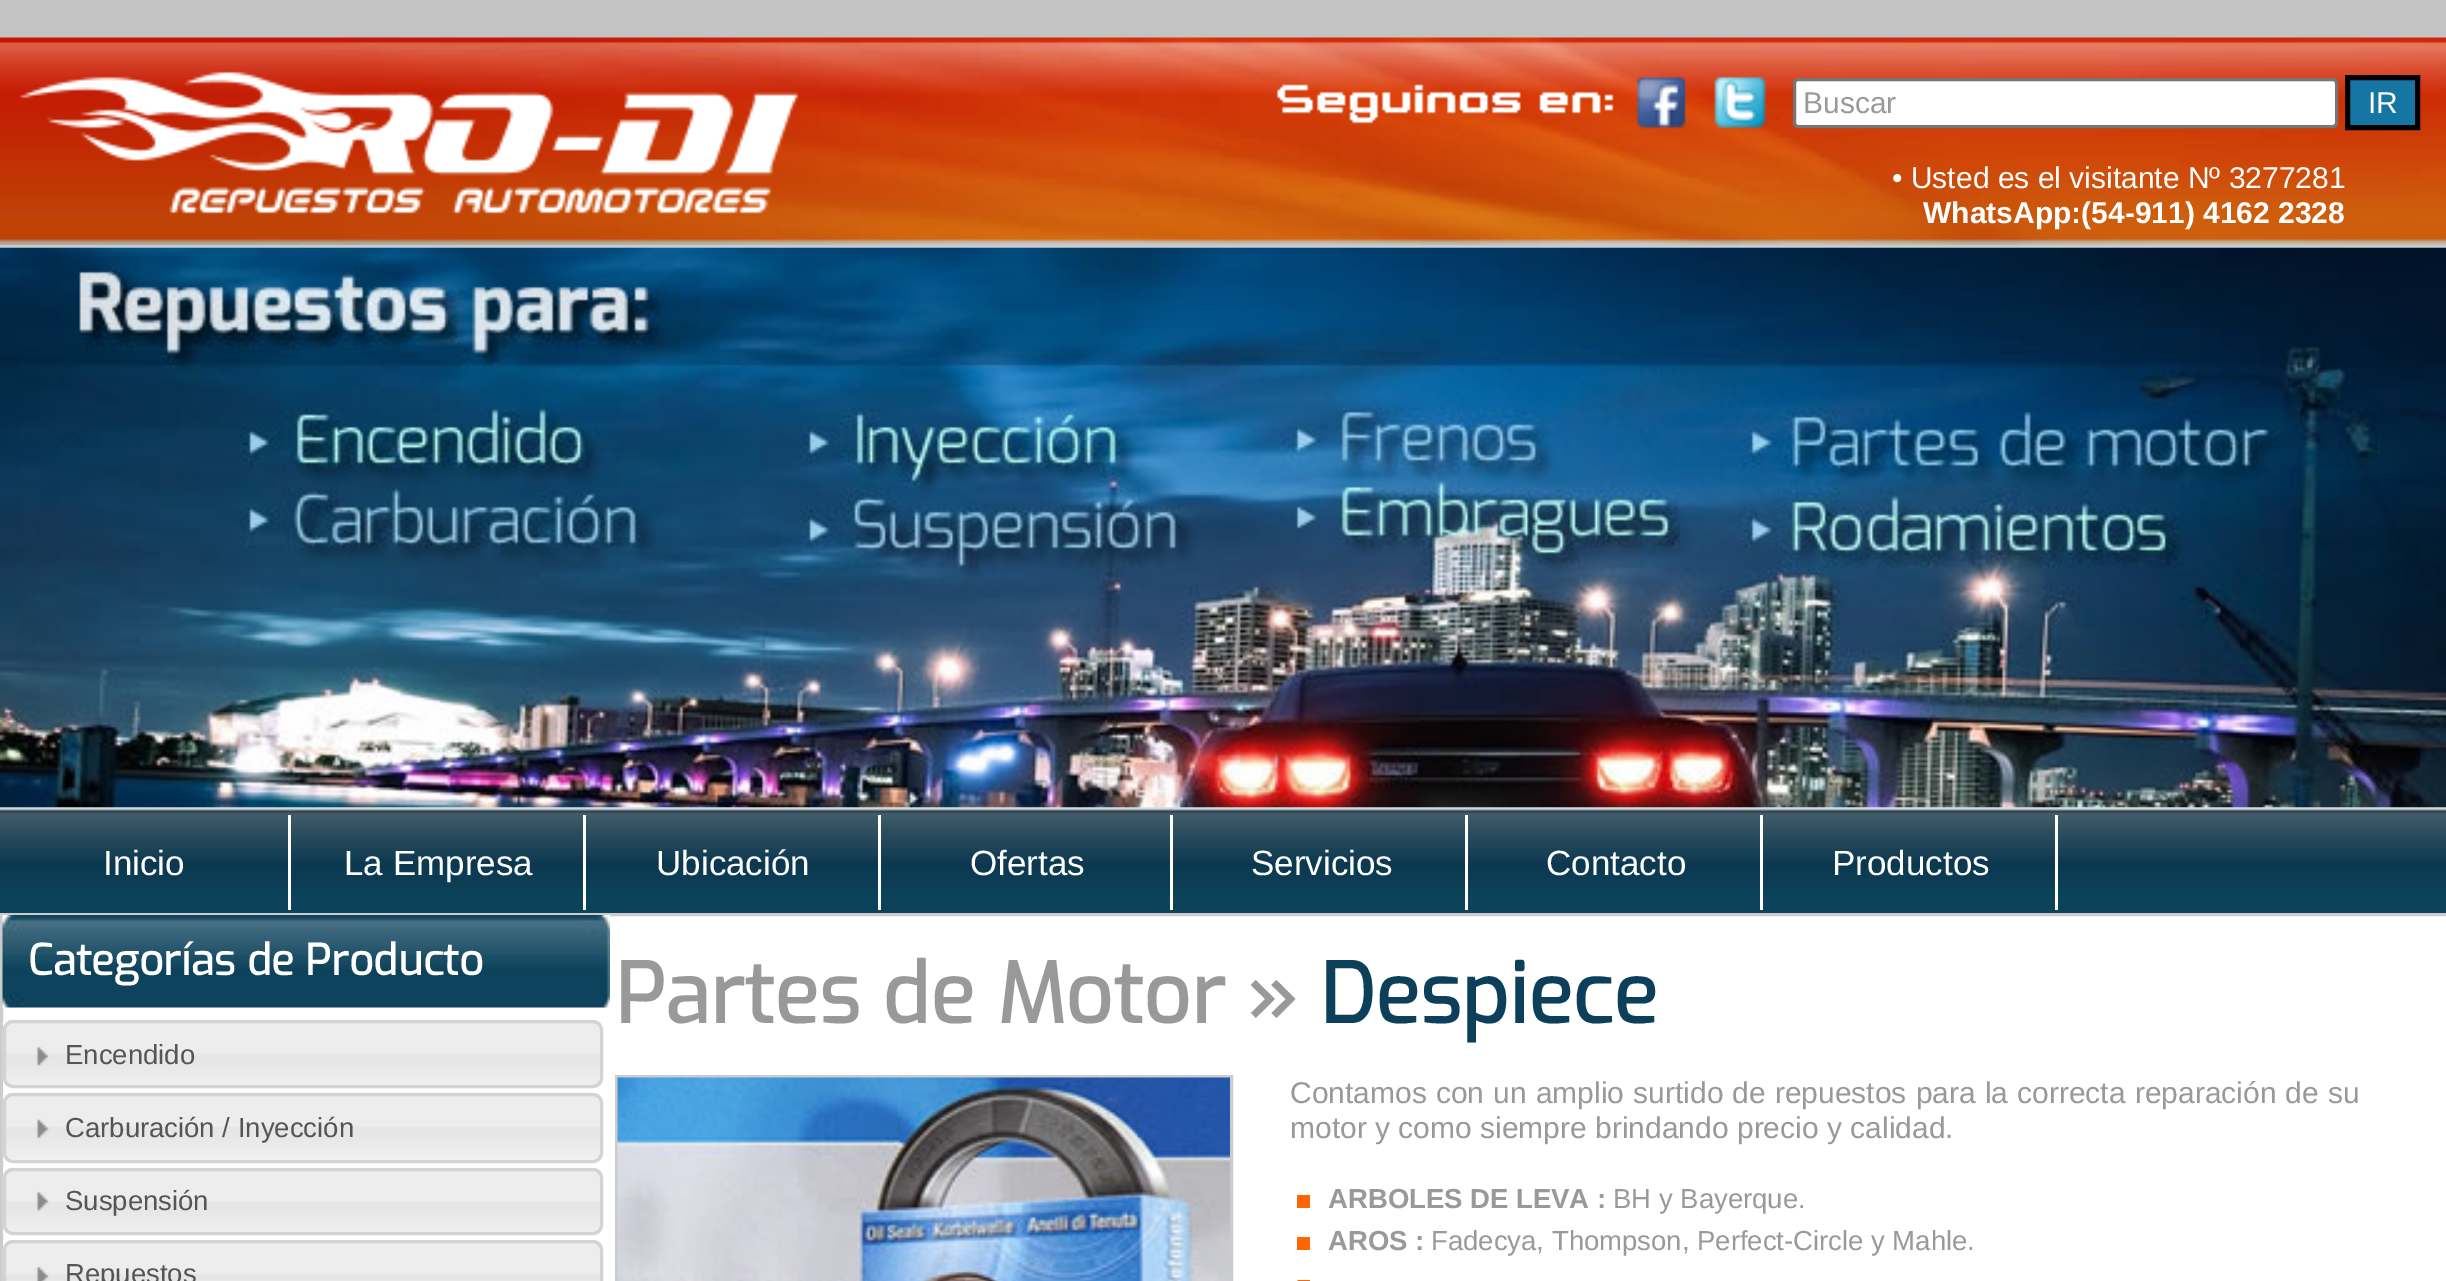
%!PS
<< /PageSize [2446 1281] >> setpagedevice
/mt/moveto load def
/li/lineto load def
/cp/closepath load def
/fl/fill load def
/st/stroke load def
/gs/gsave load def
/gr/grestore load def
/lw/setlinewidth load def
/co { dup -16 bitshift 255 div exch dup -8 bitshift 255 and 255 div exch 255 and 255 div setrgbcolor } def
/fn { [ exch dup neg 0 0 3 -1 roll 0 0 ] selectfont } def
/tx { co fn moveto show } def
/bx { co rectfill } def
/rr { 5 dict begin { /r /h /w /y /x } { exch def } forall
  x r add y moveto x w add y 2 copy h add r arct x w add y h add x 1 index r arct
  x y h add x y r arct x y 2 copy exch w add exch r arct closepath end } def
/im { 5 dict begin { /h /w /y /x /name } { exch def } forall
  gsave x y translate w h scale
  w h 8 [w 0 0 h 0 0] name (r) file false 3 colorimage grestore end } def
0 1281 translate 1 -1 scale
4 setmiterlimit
0 0 2446 1281 16#FFFFFF bx
(media/1.raw) 0 0 2446 808 im
(media/2.raw) 0 37 2446 208 im
(media/3.raw) 19 71 780 143 im
(media/4.raw) 1276 84 338 40 im
(media/5.raw) 1636 76 50 53 im
(media/6.raw) 1714 76 52 53 im
1794.5 79.5 542 47 3.5 rr gs fl gr
16#767676 co
3 lw
st
16#1575A3 co
2347.5 77.5 mt 2417.5 77.5 li 2417.5 127.5 li 2347.5 127.5 li cp gs fl gr
16#000000 co
5 lw
st
(media/8.raw) 0 807 2446 106 im
(media/7.raw) 0 247 2446 561 im
288 815 3 95 16#FFFFFF bx
583 815 3 95 16#FFFFFF bx
878 815 3 95 16#FFFFFF bx
1170 815 3 95 16#FFFFFF bx
1465 815 3 95 16#FFFFFF bx
1760 815 3 95 16#FFFFFF bx
2055 815 3 95 16#FFFFFF bx
16#CCCCCC co
3 lw
1.5 914.5 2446 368 rectstroke
(media/9.raw) 2 915 608 93 im
(media/10.raw) 2 1020 600 67 im
16#D3D3D3 co
4.5 1021.5 597 65 8.5 rr st
(media/11.raw) 36 1046 13 20 im
(media/12.raw) 2 1092 600 70 im
4.5 1094.5 597 67 8.5 rr st
(media/13.raw) 36 1119 13 20 im
(media/14.raw) 2 1167 600 68 im
4.5 1169.5 597 64 8.5 rr st
(media/15.raw) 36 1191 13 20 im
(media/16.raw) 2 1240 600 41 im
4.5 1241.5 597 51 8.5 rr st
(media/17.raw) 36 1266 13 15 im
16#CCCCCC co
616.5 1076.5 615 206 rectstroke
(media/18.raw) 617 1077 613 204 im
1297 1195 13 13 16#FF6600 bx
1297 1237 13 13 16#FF6600 bx
(media/19.raw) 1297 1280 13 1 im
(Buscar) 1803 113 /LiberationSans-Regular 30 16#999999 tx
(IR) 2368 113 /LiberationSans-Regular 30 16#FFFFFF tx
(• Usted es el visitante Nº 3277281) 1892 188 /LiberationSans-Regular 30 16#FFFFFF tx
(WhatsApp:\(54-911\) 4162 2328) 1923 223 /LiberationSans-Bold 30 16#FFFFFF tx
(Inicio) 103 875 /LiberationSans-Regular 35 16#FFFFFF tx
(La Empresa) 344 875 /LiberationSans-Regular 35 16#FFFFFF tx
(Ubicación) 656 875 /LiberationSans-Regular 35 16#FFFFFF tx
(Ofertas) 970 875 /LiberationSans-Regular 35 16#FFFFFF tx
(Servicios) 1251 875 /LiberationSans-Regular 35 16#FFFFFF tx
(Contacto) 1546 875 /LiberationSans-Regular 35 16#FFFFFF tx
(Productos) 1832 875 /LiberationSans-Regular 35 16#FFFFFF tx
(Categorías de Producto) 28 975 /Exo-Bold 42.5 16#FFFFFF tx
(Encendido) 65 1064 /LiberationSans-Regular 27.5 16#555555 tx
(Carburación / Inyección) 65 1137 /LiberationSans-Regular 27.5 16#555555 tx
(Suspensión) 65 1210 /LiberationSans-Regular 27.5 16#555555 tx
(Repuestos) 65 1283 /LiberationSans-Regular 27.5 16#555555 tx
(Partes de Motor ») 615 1023 /Exo-Bold 82.5 16#999999 tx
(Despiece) 1320 1023 /Exo-Bold 82.5 16#0C3F59 tx
/LiberationSans-Regular 30 fn
16#999999 co
1290 1103 mt .75 0 32 (Contamos con un amplio surtido de repuestos para la correcta reparación de su) widthshow
(motor y como siempre brindando precio y calidad.) 1290 1138 /LiberationSans-Regular 30 16#999999 tx
(ARBOLES DE LEVA :) 1328 1208 /LiberationSans-Bold 27.5 16#999999 tx
(BH y Bayerque.) 1613 1208 /LiberationSans-Regular 27.5 16#999999 tx
(AROS :) 1328 1250 /LiberationSans-Bold 27.5 16#999999 tx
(Fadecya, Thompson, Perfect-Circle y Mahle.) 1431 1250 /LiberationSans-Regular 27.5 16#999999 tx
showpage
